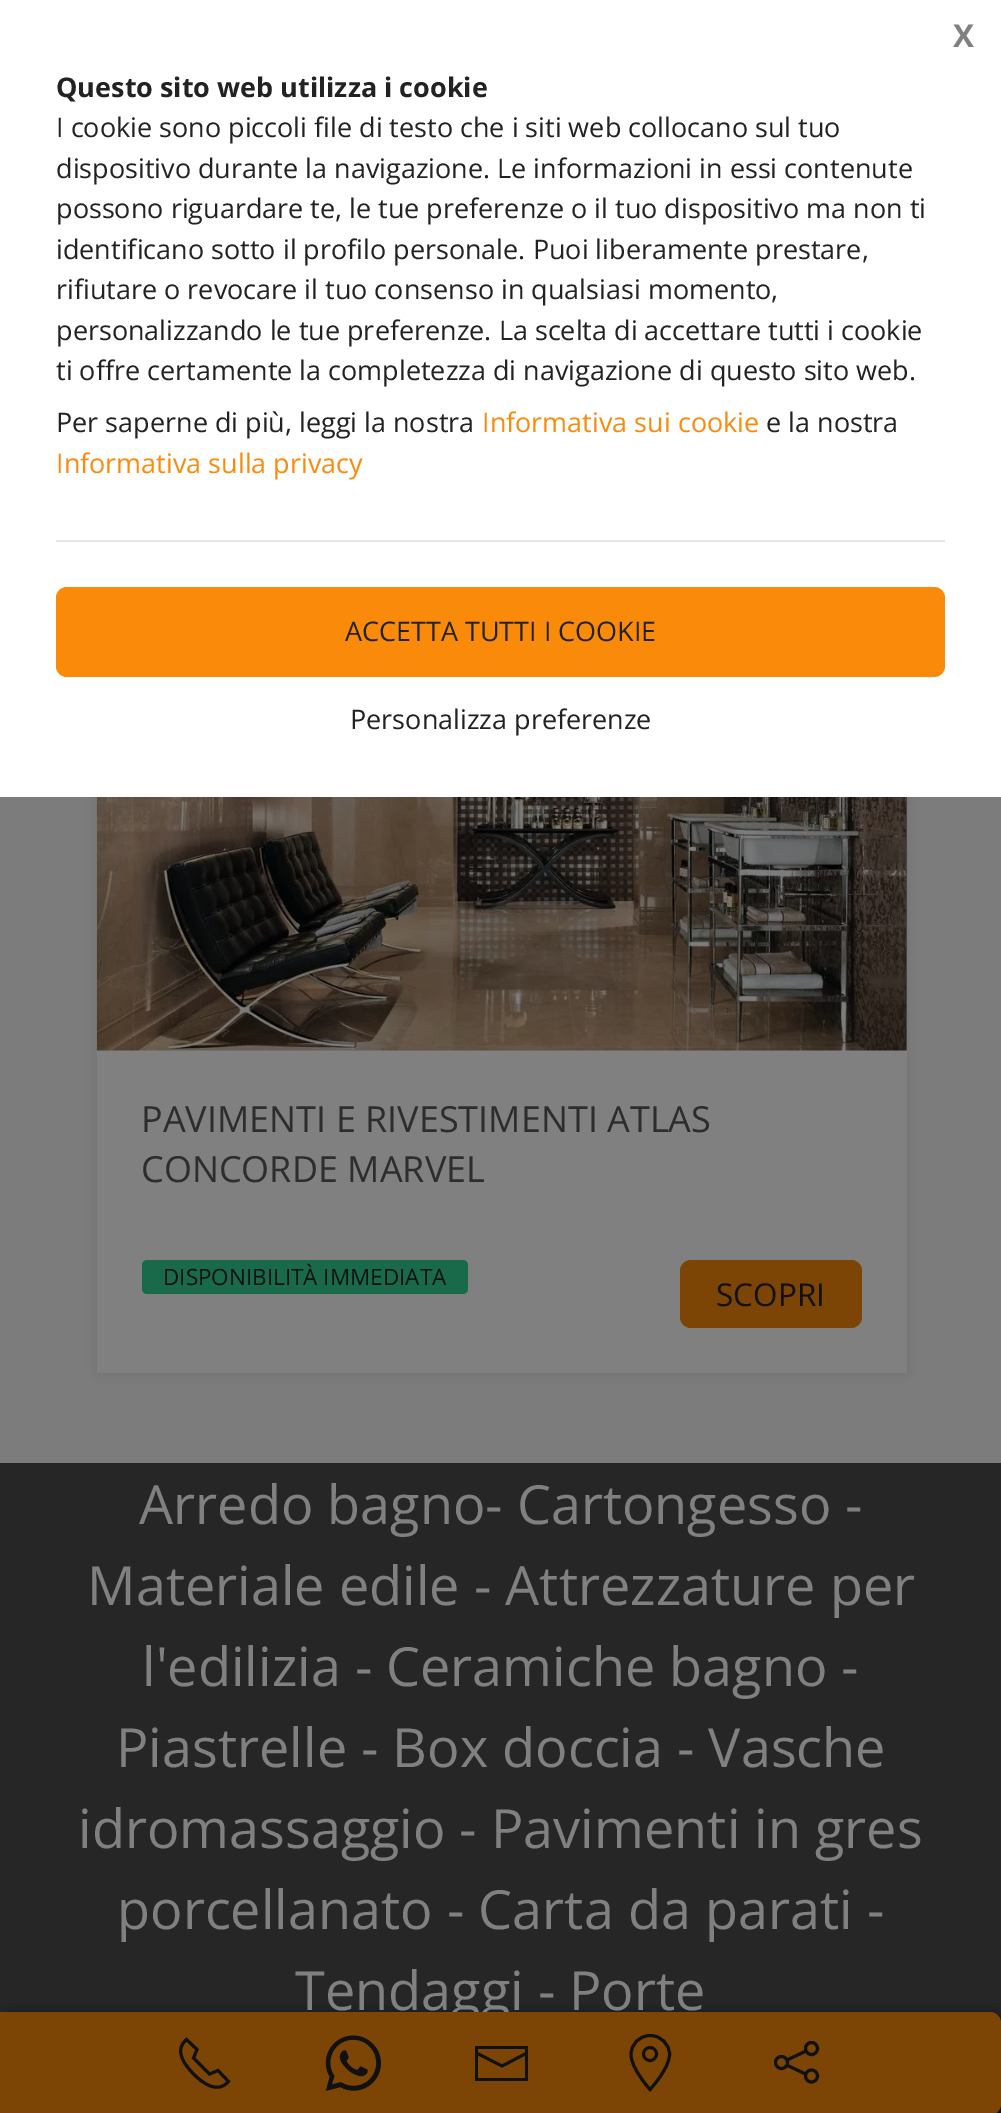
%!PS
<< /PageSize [1001 2113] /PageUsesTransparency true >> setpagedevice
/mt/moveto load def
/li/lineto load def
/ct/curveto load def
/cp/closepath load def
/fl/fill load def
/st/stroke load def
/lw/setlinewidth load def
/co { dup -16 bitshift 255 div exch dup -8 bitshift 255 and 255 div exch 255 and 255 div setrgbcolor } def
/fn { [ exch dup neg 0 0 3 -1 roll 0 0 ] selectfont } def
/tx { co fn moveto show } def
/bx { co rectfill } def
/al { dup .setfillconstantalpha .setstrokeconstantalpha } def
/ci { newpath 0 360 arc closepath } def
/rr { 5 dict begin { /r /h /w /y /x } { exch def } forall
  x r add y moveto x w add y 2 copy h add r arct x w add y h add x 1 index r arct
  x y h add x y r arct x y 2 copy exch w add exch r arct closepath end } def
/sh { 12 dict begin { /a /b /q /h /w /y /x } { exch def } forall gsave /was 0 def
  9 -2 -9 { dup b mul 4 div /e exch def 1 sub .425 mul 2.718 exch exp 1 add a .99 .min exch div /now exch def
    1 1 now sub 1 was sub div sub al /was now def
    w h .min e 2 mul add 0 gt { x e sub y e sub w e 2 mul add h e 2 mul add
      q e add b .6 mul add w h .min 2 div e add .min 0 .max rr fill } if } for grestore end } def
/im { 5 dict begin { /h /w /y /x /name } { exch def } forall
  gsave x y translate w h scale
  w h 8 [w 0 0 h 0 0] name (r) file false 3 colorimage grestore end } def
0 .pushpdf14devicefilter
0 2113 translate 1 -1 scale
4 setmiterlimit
0 0 1001 2113 16#7C7C7C bx
16#000000 co
97 596 810 777 0 9 .1 sh
0 0 1001 797 16#FFFFFF bx
56 540 889 2 16#E5E5E5 bx
16#FA8A0A co
56 587 889 90 11 rr fl
97 797 810 576 16#808080 bx
(media/1.raw) 96 797 811 254 im
16#19694B co
142 1260 326 34 5 rr fl
16#7D4505 co
680 1260 182 68 11 rr fl
0 1463 1001 560 16#262626 bx
996 2104 5 9 16#111111 bx
2 2014 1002 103 11 5.5 1 sh
(X) 953 47 /OpenSans-Bold 31.5 16#808080 tx
(Questo sito web utilizza i cookie) 56 97 /OpenSans-Bold 27 16#222222 tx
(I cookie sono piccoli file di testo che i siti web collocano sul tuo) 56 137 /OpenSans-Regular 27 16#222222 tx
(dispositivo durante la navigazione. Le informazioni in essi contenute) 56 178 /OpenSans-Regular 27 16#222222 tx
(possono riguardare te, le tue preferenze o il tuo dispositivo ma non ti) 56 218 /OpenSans-Regular 27 16#222222 tx
(identificano sotto il profilo personale. Puoi liberamente prestare,) 56 259 /OpenSans-Regular 27 16#222222 tx
(rifiutare o revocare il tuo consenso in qualsiasi momento,) 56 299 /OpenSans-Regular 27 16#222222 tx
(personalizzando le tue preferenze. La scelta di accettare tutti i cookie) 56 340 /OpenSans-Regular 27 16#222222 tx
(ti offre certamente la completezza di navigazione di questo sito web.) 56 380 /OpenSans-Regular 27 16#222222 tx
(Per saperne di più, leggi la nostra) 56 432 /OpenSans-Regular 27 16#222222 tx
(Informativa sui cookie) 482 432 /OpenSans-Regular 27 16#FA8A0A tx
(e la nostra) 766 432 /OpenSans-Regular 27 16#222222 tx
(Informativa sulla privacy) 56 473 /OpenSans-Regular 27 16#FA8A0A tx
(ACCETTA TUTTI I COOKIE) 345 641 /OpenSans-Regular 27 16#222222 tx
(Personalizza preferenze) 350 729 /OpenSans-Regular 27 16#222222 tx
(PAVIMENTI E RIVESTIMENTI ATLAS) 141 1132 /OpenSans-Regular 36 16#2D2D2D tx
(CONCORDE MARVEL) 141 1182 /OpenSans-Regular 36 16#2D2D2D tx
(DISPONIBILITÀ IMMEDIATA) 163 1285 /OpenSans-Regular 22.5 16#111111 tx
(SCOPRI) 716 1306 /OpenSans-Regular 31.5 16#111111 tx
(Arredo bagno- Cartongesso -) 139 1524 /OpenSans-Regular 54 16#808080 tx
(Materiale edile - Attrezzature per) 87 1605 /OpenSans-Regular 54 16#808080 tx
(l'edilizia - Ceramiche bagno -) 142 1686 /OpenSans-Regular 54 16#808080 tx
(Piastrelle - Box doccia - Vasche) 116 1767 /OpenSans-Regular 54 16#808080 tx
(idromassaggio - Pavimenti in gres) 78 1848 /OpenSans-Regular 54 16#808080 tx
(porcellanato - Carta da parati -) 117 1929 /OpenSans-Regular 54 16#808080 tx
(Tendaggi - Porte) 295 2010 /OpenSans-Regular 54 16#808080 tx
16#7D4505 co
0 2012 mt 990 2012 li 996 2012 1001 2017 1001 2023 ct 1001 2104 li 1001 2110 996 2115 990 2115 ct 0 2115 li cp fl
16#111111 co
3 lw
193.5 2074 mt 202.5 2083 217.5 2094.5 228.5 2081.5 ct 218 2070.5 li 209.5 2074 li 193.5 2058 li 197 2049.5 li 186.5 2039.5 li 173.5 2050.5 184.5 2064.5 193.5 2074 ct st
(media/2.raw) 325 2035 57 56 im
2.9 lw
476.5 2053 mt 502 2066 li 527 2053 li st
475 2046 mt 475 2081 li 528 2081 li 528 2046 li cp 525 2078 mt 478 2078 li 478 2049 li 525 2049 li cp fl
3 lw
650 2035.5 mt 639.5 2035.5 631 2044 631 2054.5 ct 631 2068.5 650 2089.5 650 2089.5 ct 650 2089.5 669.5 2068.5 669.5 2054.5 ct 669.5 2044 661 2035.5 650 2035.5 ct cp st
2.9 lw
650 2054 6.5 ci st
3 lw
805.5 2074 mt 786.5 2065 li 806 2051 mt 787 2060 li st
811.5 2048.5 6 ci st
811.5 2076 6 ci st
781.5 2062.5 6 ci st
.poppdf14devicefilter showpage
